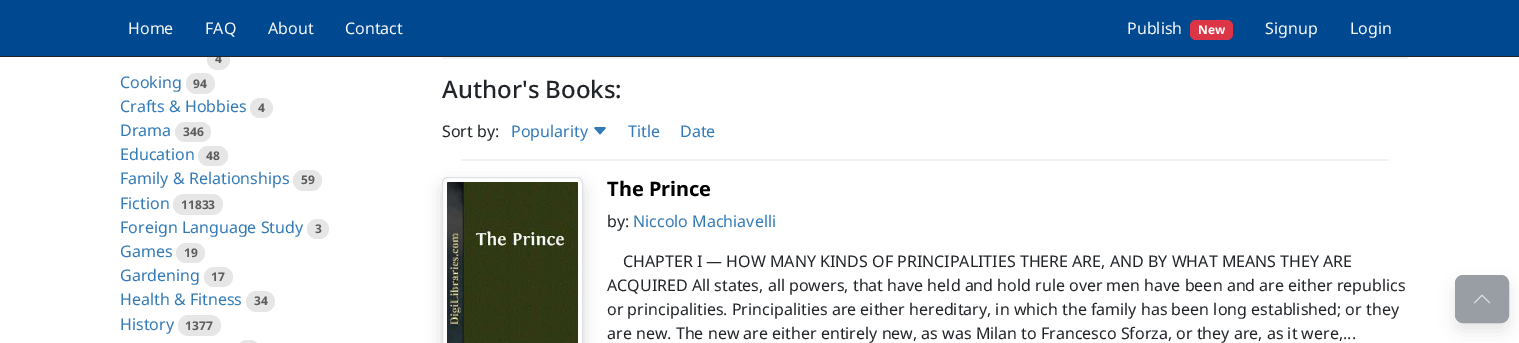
%!PS
<< /PageSize [1519 343] /PageUsesTransparency true >> setpagedevice
/mt/moveto load def
/li/lineto load def
/ct/curveto load def
/cp/closepath load def
/fl/fill load def
/st/stroke load def
/gs/gsave load def
/gr/grestore load def
/co { dup -16 bitshift 255 div exch dup -8 bitshift 255 and 255 div exch 255 and 255 div setrgbcolor } def
/fn { [ exch dup neg 0 0 3 -1 roll 0 0 ] selectfont } def
/tx { co fn moveto show } def
/bx { co rectfill } def
/al { dup .setfillconstantalpha .setstrokeconstantalpha } def
/rr { 5 dict begin { /r /h /w /y /x } { exch def } forall
  x r add y moveto x w add y 2 copy h add r arct x w add y h add x 1 index r arct
  x y h add x y r arct x y 2 copy exch w add exch r arct closepath end } def
/sh { 12 dict begin { /a /b /q /h /w /y /x } { exch def } forall gsave /was 0 def
  9 -2 -9 { dup b mul 4 div /e exch def 1 sub .425 mul 2.718 exch exp 1 add a .99 .min exch div /now exch def
    1 1 now sub 1 was sub div sub al /was now def
    w h .min e 2 mul add 0 gt { x e sub y e sub w e 2 mul add h e 2 mul add
      q e add b .6 mul add w h .min 2 div e add .min 0 .max rr fill } if } for grestore end } def
/im { 5 dict begin { /h /w /y /x /name } { exch def } forall
  gsave x y translate w h scale
  w h 8 [w 0 0 h 0 0] name (r) file false 3 colorimage grestore end } def
0 .pushpdf14devicefilter
0 343 translate 1 -1 scale
4 setmiterlimit
0 0 1519 343 16#FFFFFF bx
16#E6E6E6 co
207 49 23 21 10.5 rr fl
186 73 29 21 10.5 rr fl
250 98 23 20 10 rr fl
175 122 36 20 10 rr fl
198 146 30 20 10 rr fl
293 170 29 21 10.5 rr fl
173 194 50 21 10.5 rr fl
307 219 22 20 10 rr fl
176 243 29 20 10 rr fl
204 267 29 20 10 rr fl
246 291 29 21 10.5 rr fl
178 315 43 21 10.5 rr fl
237 340 23 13 10 rr fl
442 57 966 2 16#F1F2F2 bx
(media/1.raw) 594 127 12 8 im
gs
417 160 mt 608 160 li 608 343 li 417 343 li cp 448 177 mt 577 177 li 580.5 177 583 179.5 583 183 ct 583 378 li 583 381.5 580.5 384 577 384 ct 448 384 li 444.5 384 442 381.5 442 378 ct 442 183 li 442 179.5 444.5 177 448 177 ct cp eoclip newpath
16#000000 co
442 185 141 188 6 8 .15 sh
gr
461 159 927 2 16#F1F1F1 bx
16#DEE2E6 co
442.5 177.5 140 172 5.5 rr st
(media/2.raw) 447 182 131 161 im
16#4D4D4D co
1455 283 54 48 8 8 .15 sh
16#989EA4 co
1455.5 275.5 53 47 7.5 rr gs fl gr
st
(media/3.raw) 1474 294 16 10 im
(4) 215 63 /NotoSans-Bold 12 16#5C5C5C tx
0 0 1519 56 16#004890 bx
(Login) 1350 34 /NotoSans-Regular 16 16#F8F9FA tx
(Signup) 1265 34 /NotoSans-Regular 16 16#F8F9FA tx
16#DC3545 co
1190 20 43 20 6 rr fl
(New) 1198 34 /NotoSans-Bold 12 16#FFFFFF tx
(Publish) 1127 34 /NotoSans-Regular 16 16#F8F9FA tx
(Contact) 345 34 /NotoSans-Regular 16 16#F8F9FA tx
(About) 268 34 /NotoSans-Regular 16 16#F8F9FA tx
(FAQ) 205 34 /NotoSans-Regular 16 16#F8F9FA tx
(Home) 128 34 /NotoSans-Regular 16 16#F8F9FA tx
0 56 1519 1 16#212529 bx
(Cooking) 120 88 /NotoSans-Regular 16 16#337AB7 tx
(94) 193 88 /NotoSans-Bold 12 16#5C5C5C tx
(Crafts & Hobbies) 120 112 /NotoSans-Regular 16 16#337AB7 tx
(4) 258 112 /NotoSans-Bold 12 16#5C5C5C tx
(Drama) 120 136 /NotoSans-Regular 16 16#337AB7 tx
(346) 183 136 /NotoSans-Bold 12 16#5C5C5C tx
(Education) 120 160 /NotoSans-Regular 16 16#337AB7 tx
(48) 206 160 /NotoSans-Bold 12 16#5C5C5C tx
(Family & Relationships) 120 184 /NotoSans-Regular 16 16#337AB7 tx
(59) 301 184 /NotoSans-Bold 12 16#5C5C5C tx
(Fiction) 120 209 /NotoSans-Regular 16 16#337AB7 tx
(11833) 181 209 /NotoSans-Bold 12 16#5C5C5C tx
(Foreign Language Study) 120 233 /NotoSans-Regular 16 16#337AB7 tx
(3) 315 233 /NotoSans-Bold 12 16#5C5C5C tx
(Games) 120 257 /NotoSans-Regular 16 16#337AB7 tx
(19) 184 257 /NotoSans-Bold 12 16#5C5C5C tx
(Gardening) 120 281 /NotoSans-Regular 16 16#337AB7 tx
(17) 211 281 /NotoSans-Bold 12 16#5C5C5C tx
(Health & Fitness) 120 305 /NotoSans-Regular 16 16#337AB7 tx
(34) 254 305 /NotoSans-Bold 12 16#5C5C5C tx
(History) 120 330 /NotoSans-Regular 16 16#337AB7 tx
(1377) 185 330 /NotoSans-Bold 12 16#5C5C5C tx
(Author's Books:) 442 98 /NotoSans-Medium 24 16#212529 tx
(Sort by:) 442 137 /NotoSans-Regular 16 16#212529 tx
(Popularity) 511 137 /NotoSans-Regular 16 16#337AB7 tx
(Title) 628 137 /NotoSans-Regular 16 16#337AB7 tx
(Date) 680 137 /NotoSans-Regular 16 16#337AB7 tx
(The Prince) 607 196 /NotoSans-Bold 20 16#000000 tx
(by:) 607 227 /NotoSans-Regular 16 16#212529 tx
(Niccolo Machiavelli) 633 227 /NotoSans-Regular 16 16#337AB7 tx
(CHAPTER I — HOW MANY KINDS OF PRINCIPALITIES THERE ARE, AND BY WHAT MEANS THEY ARE) 623 267 /NotoSans-Regular 16 16#212529 tx
(ACQUIRED All states, all powers, that have held and hold rule over men have been and are either republics) 607 291 /NotoSans-Regular 16 16#212529 tx
(or principalities. Principalities are either hereditary, in which the family has been long established; or they) 607 315 /NotoSans-Regular 16 16#212529 tx
(are new. The new are either entirely new, as was Milan to Francesco Sforza, or they are, as it were,...) 607 339 /NotoSans-Regular 16 16#212529 tx
.poppdf14devicefilter showpage
